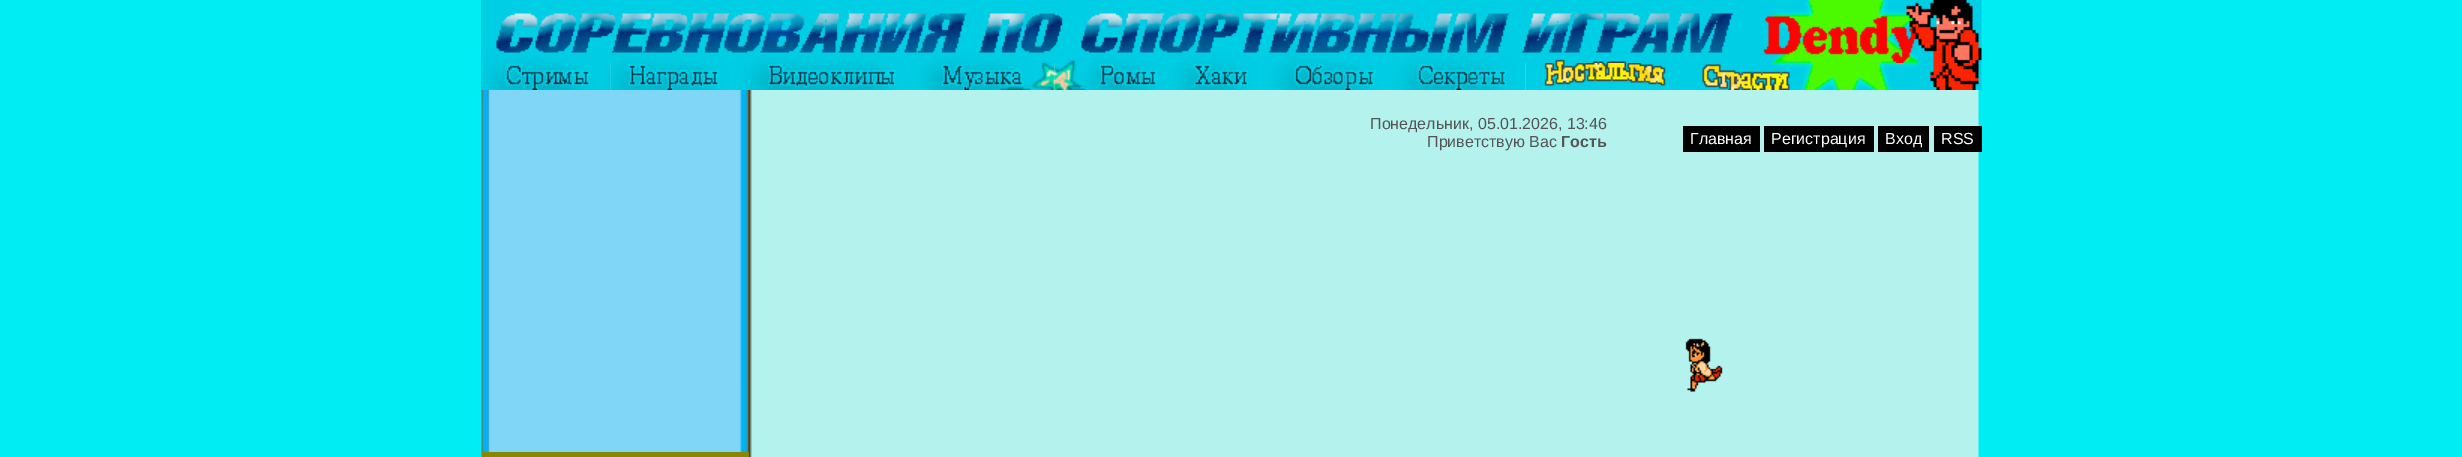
%!PS
<< /PageSize [2462 457] >> setpagedevice
/co { dup -16 bitshift 255 div exch dup -8 bitshift 255 and 255 div exch 255 and 255 div setrgbcolor } def
/fn { [ exch dup neg 0 0 3 -1 roll 0 0 ] selectfont } def
/tx { co fn moveto show } def
/bx { co rectfill } def
/im { 5 dict begin { /h /w /y /x /name } { exch def } forall
  gsave x y translate w h scale
  w h 8 [w 0 0 h 0 0] name (r) file false 3 colorimage grestore end } def
0 457 translate 1 -1 scale
4 setmiterlimit
0 0 2462 457 16#00EDF4 bx
(media/1.raw) 481 0 1498 457 im
(media/2.raw) 481 0 1501 63 im
(media/3.raw) 481 63 130 27 im
(media/4.raw) 610 63 136 27 im
(media/5.raw) 745 63 173 27 im
(media/6.raw) 918 63 137 27 im
(media/7.raw) 1054 63 119 27 im
(media/8.raw) 1173 63 96 27 im
(media/9.raw) 1269 63 126 27 im
(media/10.raw) 1395 63 131 27 im
(media/11.raw) 1525 63 457 27 im
(media/12.raw) 1685 338 38 54 im
1683 126 77 26 16#000000 bx
1764 126 110 26 16#000000 bx
1878 126 51 26 16#000000 bx
1934 126 48 26 16#000000 bx
482 452 267 5 16#888800 bx
(Понедельник, 05.01.2026, 13:46) 1370 129 /LiberationSans-Regular 16 16#555555 tx
(Приветствую Вас) 1427 147 /LiberationSans-Regular 16 16#555555 tx
(Гость) 1561 147 /LiberationSans-Bold 16 16#555555 tx
(Главная) 1690 144 /LiberationSans-Regular 16 16#FFFFFF tx
(Регистрация) 1771 144 /LiberationSans-Regular 16 16#FFFFFF tx
(Вход) 1885 144 /LiberationSans-Regular 16 16#FFFFFF tx
(RSS) 1941 144 /LiberationSans-Regular 16 16#FFFFFF tx
showpage
